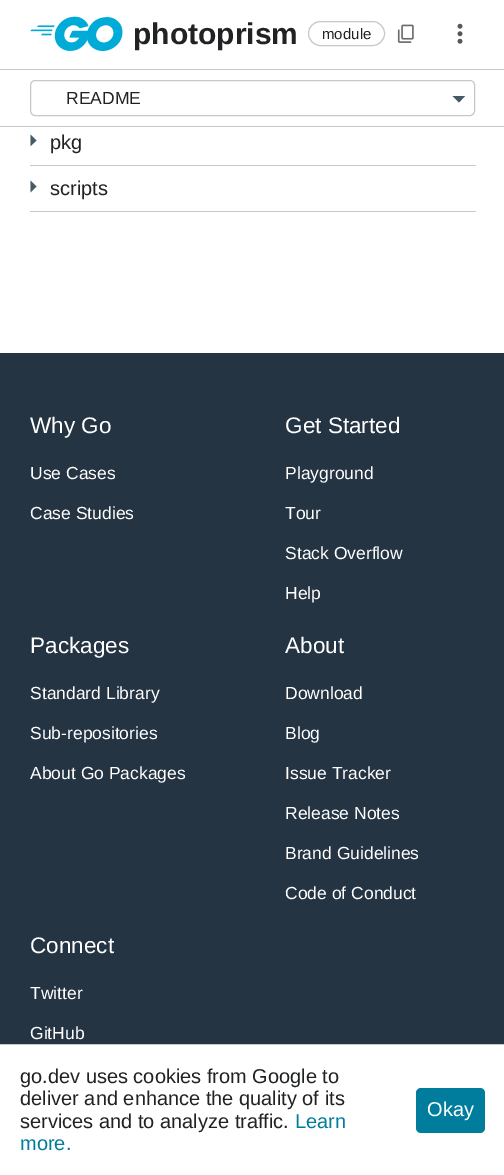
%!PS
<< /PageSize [504 1175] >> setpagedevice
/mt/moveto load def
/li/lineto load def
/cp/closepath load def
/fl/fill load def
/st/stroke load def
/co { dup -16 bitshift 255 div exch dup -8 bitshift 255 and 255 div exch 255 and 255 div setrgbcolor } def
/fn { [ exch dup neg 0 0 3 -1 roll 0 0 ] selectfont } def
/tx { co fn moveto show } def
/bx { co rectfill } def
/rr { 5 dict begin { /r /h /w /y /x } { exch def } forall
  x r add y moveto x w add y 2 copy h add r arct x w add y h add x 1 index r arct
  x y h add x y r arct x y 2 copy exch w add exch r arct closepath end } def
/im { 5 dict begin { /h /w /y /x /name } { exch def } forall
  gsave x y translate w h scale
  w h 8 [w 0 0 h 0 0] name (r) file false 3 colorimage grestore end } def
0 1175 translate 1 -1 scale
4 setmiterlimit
0 0 504 1175 16#FFFFFF bx
0 69 504 1 16#C6C8CA bx
(media/1.raw) 30 16 93 35 im
308.5 21.5 76 24 12 rr st
(media/2.raw) 397 24 17 19 im
(media/3.raw) 457 23 6 21 im
0 126 504 1 16#C6C8CA bx
16#455A64 co
452.5 96 mt 459 102.5 li 465 96 li cp fl
16#C6C8CA co
30.5 80.5 444 35 4.5 rr st
30 165 446 1 16#C6C8CA bx
16#455A64 co
30.5 146 mt 36.5 140.5 li 30.5 134.5 li cp fl
30 211 446 1 16#C6C8CA bx
16#455A64 co
30.5 192.5 mt 36.5 186.5 li 30.5 180.5 li cp fl
0 353 504 691 16#253443 bx
0 1044 504 1 16#C6C8CA bx
16#007D9C co
416 1088 69 45 5 rr fl
(photoprism) 133 44 /LiberationSans-Bold 30 16#202224 tx
(module) 322 39 /LiberationSans-Regular 15 16#202224 tx
(README) 66 104 /LiberationSans-Regular 17.5 16#202224 tx
(pkg) 50 149 /LiberationSans-Regular 20 16#202224 tx
(scripts) 50 195 /LiberationSans-Regular 20 16#202224 tx
(Why Go) 30 433 /LiberationSans-Regular 22.5 16#FFFFFF tx
(Use Cases) 30 479 /LiberationSans-Regular 17.5 16#FFFFFF tx
(Case Studies) 30 519 /LiberationSans-Regular 17.5 16#FFFFFF tx
(Get Started) 285 433 /LiberationSans-Regular 22.5 16#FFFFFF tx
(Playground) 285 479 /LiberationSans-Regular 17.5 16#FFFFFF tx
(Tour) 285 519 /LiberationSans-Regular 17.5 16#FFFFFF tx
(Stack Overflow) 285 559 /LiberationSans-Regular 17.5 16#FFFFFF tx
(Help) 285 599 /LiberationSans-Regular 17.5 16#FFFFFF tx
(Packages) 30 653 /LiberationSans-Regular 22.5 16#FFFFFF tx
(Standard Library) 30 699 /LiberationSans-Regular 17.5 16#FFFFFF tx
(Sub-repositories) 30 739 /LiberationSans-Regular 17.5 16#FFFFFF tx
(About Go Packages) 30 779 /LiberationSans-Regular 17.5 16#FFFFFF tx
(About) 285 653 /LiberationSans-Regular 22.5 16#FFFFFF tx
(Download) 285 699 /LiberationSans-Regular 17.5 16#FFFFFF tx
(Blog) 285 739 /LiberationSans-Regular 17.5 16#FFFFFF tx
(Issue Tracker) 285 779 /LiberationSans-Regular 17.5 16#FFFFFF tx
(Release Notes) 285 819 /LiberationSans-Regular 17.5 16#FFFFFF tx
(Brand Guidelines) 285 859 /LiberationSans-Regular 17.5 16#FFFFFF tx
(Code of Conduct) 285 899 /LiberationSans-Regular 17.5 16#FFFFFF tx
(Connect) 30 953 /LiberationSans-Regular 22.5 16#FFFFFF tx
(Twitter) 30 999 /LiberationSans-Regular 17.5 16#FFFFFF tx
(GitHub) 30 1039 /LiberationSans-Regular 17.5 16#FFFFFF tx
(go.dev uses cookies from Google to) 20 1083 /LiberationSans-Regular 20 16#202224 tx
(deliver and enhance the quality of its) 20 1105 /LiberationSans-Regular 20 16#202224 tx
(services and to analyze traffic.) 20 1128 /LiberationSans-Regular 20 16#202224 tx
(Learn) 295 1128 /LiberationSans-Regular 20 16#007D9C tx
(more.) 20 1150 /LiberationSans-Regular 20 16#007D9C tx
(Okay) 427 1116 /LiberationSans-Regular 20 16#FFFFFF tx
showpage
